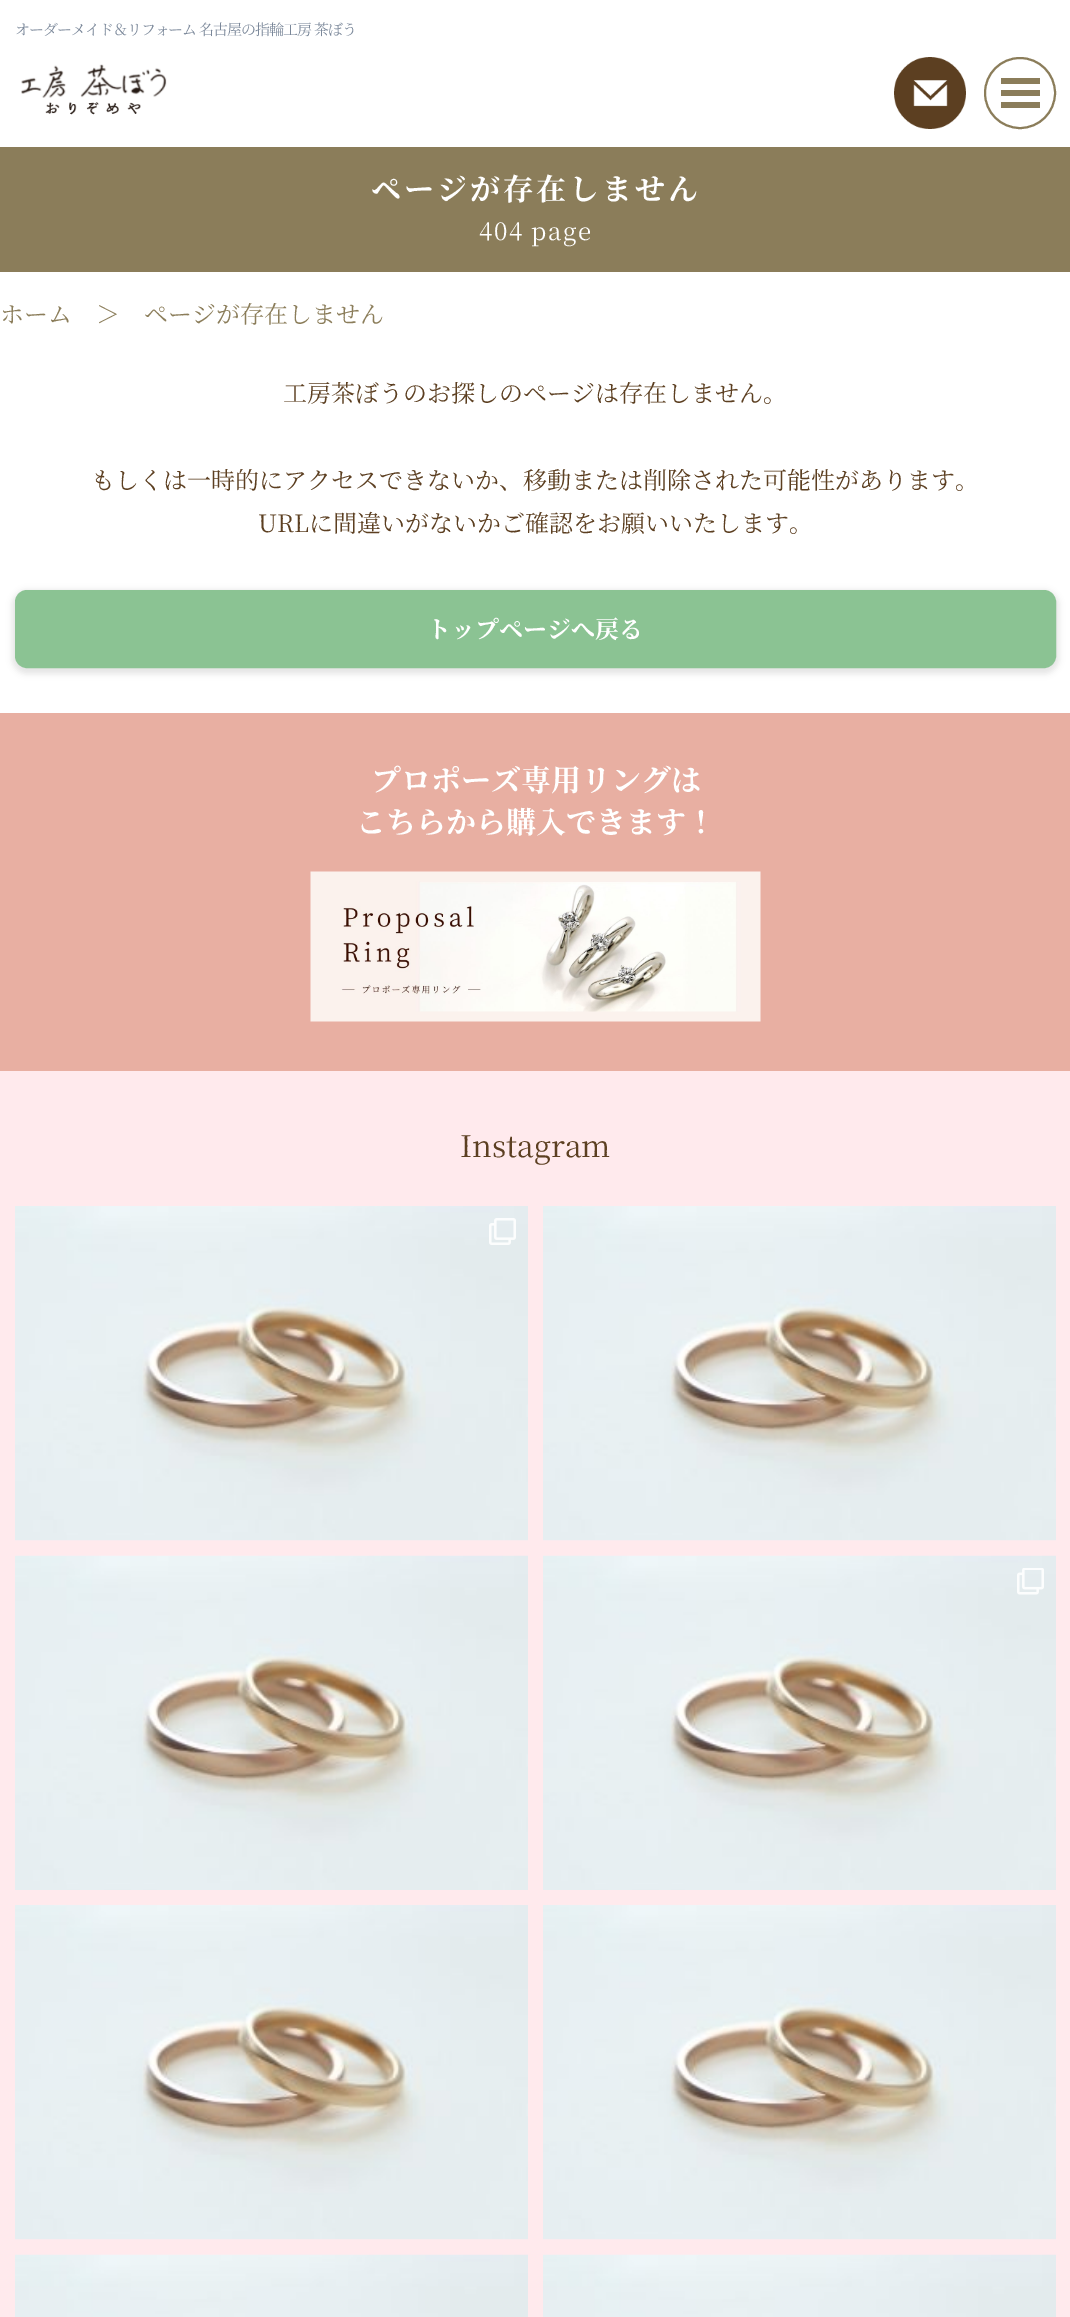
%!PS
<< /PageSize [1070 2317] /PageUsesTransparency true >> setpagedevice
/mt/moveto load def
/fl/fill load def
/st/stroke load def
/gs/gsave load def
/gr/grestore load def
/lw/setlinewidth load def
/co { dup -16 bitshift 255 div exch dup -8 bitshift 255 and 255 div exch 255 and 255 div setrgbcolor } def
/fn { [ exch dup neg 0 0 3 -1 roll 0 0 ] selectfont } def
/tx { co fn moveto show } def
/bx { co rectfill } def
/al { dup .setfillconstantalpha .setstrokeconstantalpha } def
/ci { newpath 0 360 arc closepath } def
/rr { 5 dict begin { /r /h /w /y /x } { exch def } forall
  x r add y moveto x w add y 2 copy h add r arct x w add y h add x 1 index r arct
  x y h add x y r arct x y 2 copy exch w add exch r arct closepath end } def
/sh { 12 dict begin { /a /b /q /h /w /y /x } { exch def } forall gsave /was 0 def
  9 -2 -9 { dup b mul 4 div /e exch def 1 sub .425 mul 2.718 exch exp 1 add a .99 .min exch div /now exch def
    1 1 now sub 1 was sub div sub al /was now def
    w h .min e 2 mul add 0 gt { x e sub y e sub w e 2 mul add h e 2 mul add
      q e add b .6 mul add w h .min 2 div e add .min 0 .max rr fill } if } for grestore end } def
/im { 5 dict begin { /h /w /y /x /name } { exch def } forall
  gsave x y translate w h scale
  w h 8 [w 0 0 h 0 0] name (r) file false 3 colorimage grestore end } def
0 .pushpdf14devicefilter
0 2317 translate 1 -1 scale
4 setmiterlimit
0 0 1070 2317 16#FFFFFF bx
(media/1.raw) 21 64 146 51 im
(media/2.raw) 894 57 72 72 im
16#8B7D5A co
2 lw
1020 93 35 ci st
1001 90 39 6 16#8B7D5A bx
1001 78 39 6 16#8B7D5A bx
1001 102 39 6 16#8B7D5A bx
0 147 1070 125 16#8B7D5A bx
16#000000 co
12 590 1047 84 15 3 .1 sh
16#8BC393 co
16 591 1039 76 11 rr gs fl gr
st
0 713 1070 358 16#E8AFA2 bx
(media/3.raw) 310 871 451 151 im
0 1071 1070 1246 16#FFEAED bx
(media/4.raw) 15 1206 513 335 im
(media/5.raw) 489 1218 27 27 im
(media/4.raw) 543 1206 513 335 im
(media/6.raw) 15 1555 513 335 im
(media/6.raw) 543 1555 513 335 im
(media/7.raw) 1017 1568 27 27 im
(media/4.raw) 15 1905 513 335 im
(media/4.raw) 543 1905 513 335 im
(media/8.raw) 15 2254 513 63 im
(media/8.raw) 543 2254 513 63 im
/NotoSerifJP-Regular 15 fn
16#7A8799 co
15 35 mt -1.05 0 (オーダーメイド＆リフォーム 名古屋の指輪⼯房 茶ぼう) ashow
/NotoSerifJP-Bold 30 fn
16#FFFFFF co
371 200 mt 3 0 (ページが存在しません) ashow
/NotoSerifJP-Regular 24 fn
479 240 mt 1.5 0 (404 page) ashow
(ホーム) 0 323 /NotoSerifJP-Regular 24 16#8B7D5A tx
(＞　ページが存在しません) 96 323 /NotoSerifJP-Regular 24 16#8B7D5A tx
(工房茶ぼうのお探しのページは存在しません。) 283 402 /NotoSerifJP-Regular 24 16#5C3F21 tx
(もしくは一時的にアクセスできないか、移動または削除された可能性があります。) 91 489 /NotoSerifJP-Regular 24 16#5C3F21 tx
(URLに間違いがないかご確認をお願いいたします。) 258 532 /NotoSerifJP-Regular 24 16#5C3F21 tx
(トップページへ戻る) 427 638 /NotoSerifJP-Bold 24 16#FFFFFF tx
(プロポーズ専用リングは) 371 791 /NotoSerifJP-Bold 30 16#FFFFFF tx
(こちらから購入できます！) 356 833 /NotoSerifJP-Bold 30 16#FFFFFF tx
(Instagram) 460 1157 /NotoSerifJP-Regular 30 16#5C3F21 tx
.poppdf14devicefilter showpage
